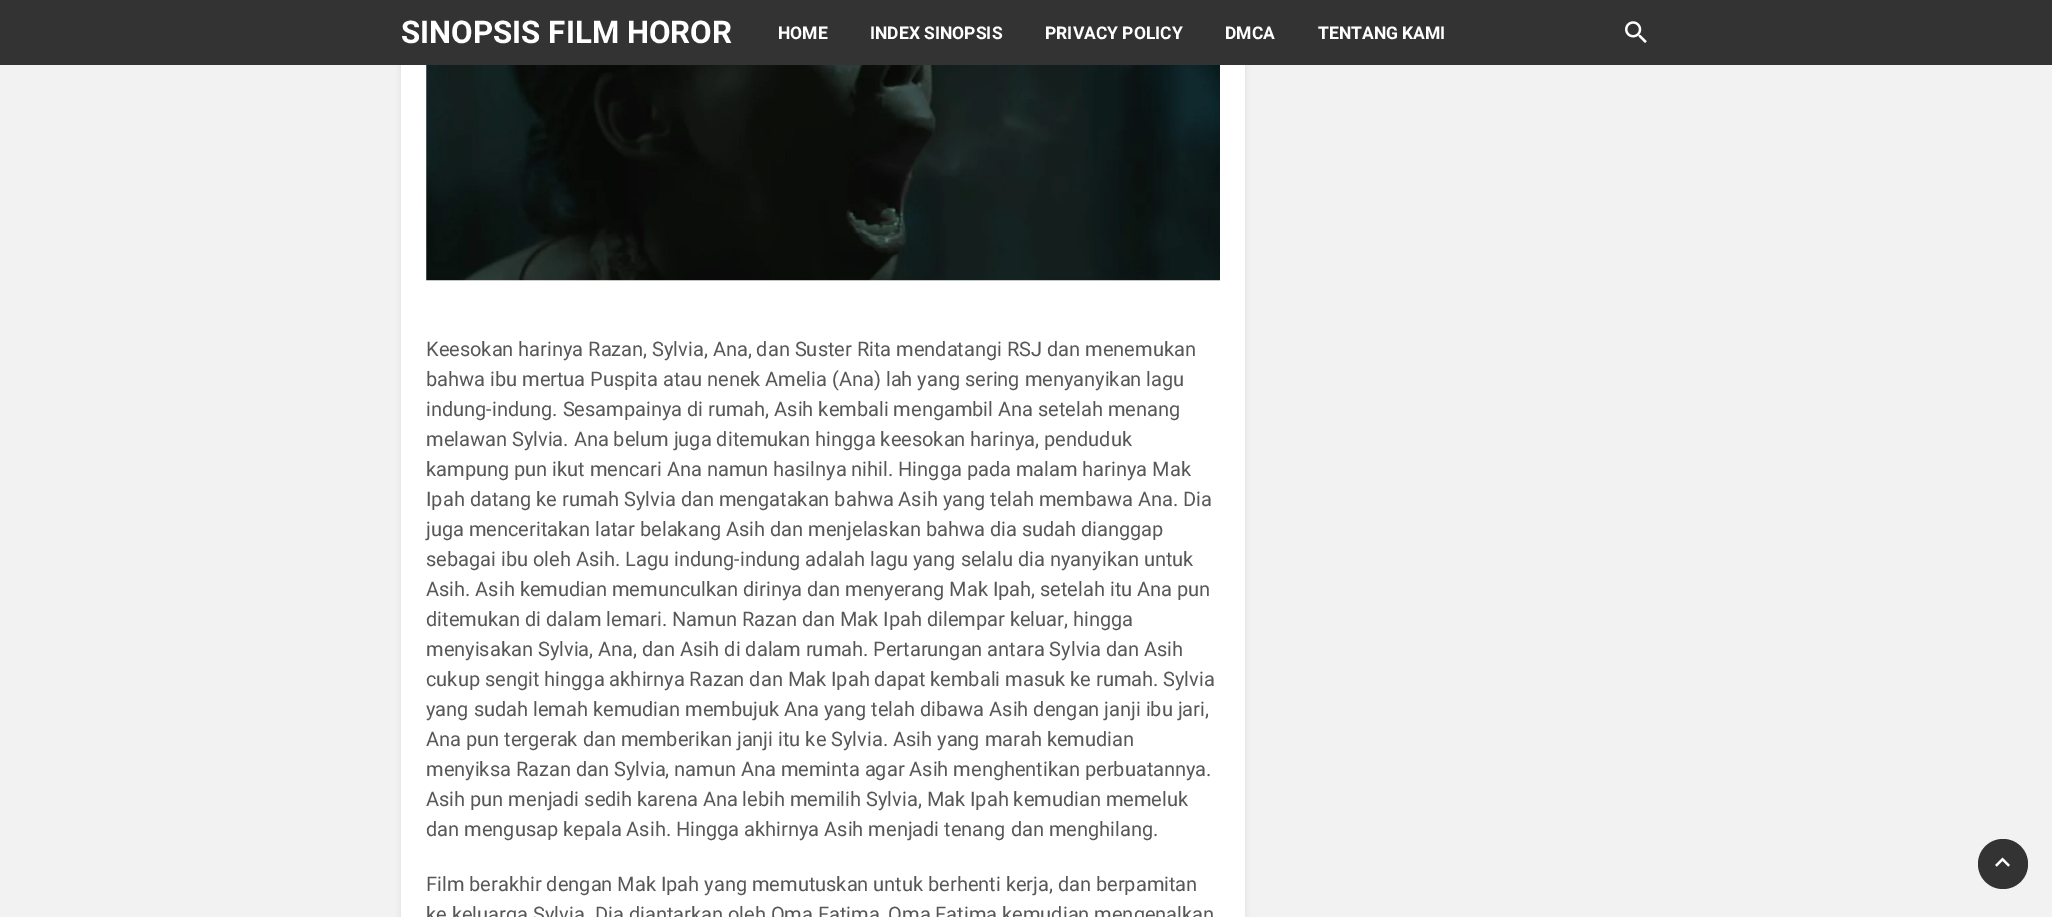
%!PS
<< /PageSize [2052 917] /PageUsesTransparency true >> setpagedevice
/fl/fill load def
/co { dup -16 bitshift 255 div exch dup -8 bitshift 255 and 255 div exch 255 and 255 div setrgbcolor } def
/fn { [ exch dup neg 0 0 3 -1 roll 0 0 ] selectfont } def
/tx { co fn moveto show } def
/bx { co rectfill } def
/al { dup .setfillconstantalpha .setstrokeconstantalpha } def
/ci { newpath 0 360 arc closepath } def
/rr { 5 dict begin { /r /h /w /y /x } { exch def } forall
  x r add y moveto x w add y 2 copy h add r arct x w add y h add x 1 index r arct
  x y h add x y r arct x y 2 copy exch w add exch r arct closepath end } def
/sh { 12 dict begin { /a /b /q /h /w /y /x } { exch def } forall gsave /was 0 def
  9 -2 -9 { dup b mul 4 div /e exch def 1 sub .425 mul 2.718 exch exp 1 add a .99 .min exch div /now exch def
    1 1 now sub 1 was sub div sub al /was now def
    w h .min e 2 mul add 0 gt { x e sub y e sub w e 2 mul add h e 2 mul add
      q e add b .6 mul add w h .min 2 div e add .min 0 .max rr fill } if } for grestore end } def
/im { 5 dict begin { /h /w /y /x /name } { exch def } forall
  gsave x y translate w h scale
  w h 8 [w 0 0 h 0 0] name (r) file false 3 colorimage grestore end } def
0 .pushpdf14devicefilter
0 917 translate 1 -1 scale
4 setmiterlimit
0 0 2052 917 16#F2F2F2 bx
16#000000 co
401 -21 844 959 13 2.5 .08 sh
0 0 2052 65 16#333333 bx
(media/1.raw) 1625 21 22 22 im
401 65 844 852 16#FFFFFF bx
(media/2.raw) 426 65 794 216 im
16#333333 co
2003 864 25 ci fl
(media/3.raw) 1995 857 15 10 im
(SINOPSIS FILM HOROR) 401 43 /Roboto-Bold 31.25 16#FFFFFF tx
(HOME) 778 39 /Roboto-Bold 17.5 16#FFFFFF tx
(INDEX SINOPSIS) 870 39 /Roboto-Bold 17.5 16#FFFFFF tx
(PRIVACY POLICY) 1045 39 /Roboto-Bold 17.5 16#FFFFFF tx
(DMCA) 1225 39 /Roboto-Bold 17.5 16#FFFFFF tx
(TENTANG KAMI) 1318 39 /Roboto-Bold 17.5 16#FFFFFF tx
(Keesokan harinya Razan, Sylvia, Ana, dan Suster Rita mendatangi RSJ dan menemukan) 426 356 /Roboto-Regular 20 16#575757 tx
(bahwa ibu mertua Puspita atau nenek Amelia \(Ana\) lah yang sering menyanyikan lagu) 426 386 /Roboto-Regular 20 16#575757 tx
(indung-indung. Sesampainya di rumah, Asih kembali mengambil Ana setelah menang) 426 416 /Roboto-Regular 20 16#575757 tx
(melawan Sylvia. Ana belum juga ditemukan hingga keesokan harinya, penduduk) 426 446 /Roboto-Regular 20 16#575757 tx
(kampung pun ikut mencari Ana namun hasilnya nihil. Hingga pada malam harinya Mak) 426 476 /Roboto-Regular 20 16#575757 tx
(Ipah datang ke rumah Sylvia dan mengatakan bahwa Asih yang telah membawa Ana. Dia) 426 506 /Roboto-Regular 20 16#575757 tx
(juga menceritakan latar belakang Asih dan menjelaskan bahwa dia sudah dianggap) 426 536 /Roboto-Regular 20 16#575757 tx
(sebagai ibu oleh Asih. Lagu indung-indung adalah lagu yang selalu dia nyanyikan untuk) 426 566 /Roboto-Regular 20 16#575757 tx
(Asih. Asih kemudian memunculkan dirinya dan menyerang Mak Ipah, setelah itu Ana pun) 426 596 /Roboto-Regular 20 16#575757 tx
(ditemukan di dalam lemari. Namun Razan dan Mak Ipah dilempar keluar, hingga) 426 626 /Roboto-Regular 20 16#575757 tx
(menyisakan Sylvia, Ana, dan Asih di dalam rumah. Pertarungan antara Sylvia dan Asih) 426 656 /Roboto-Regular 20 16#575757 tx
(cukup sengit hingga akhirnya Razan dan Mak Ipah dapat kembali masuk ke rumah. Sylvia) 426 686 /Roboto-Regular 20 16#575757 tx
(yang sudah lemah kemudian membujuk Ana yang telah dibawa Asih dengan janji ibu jari,) 426 716 /Roboto-Regular 20 16#575757 tx
(Ana pun tergerak dan memberikan janji itu ke Sylvia. Asih yang marah kemudian) 426 746 /Roboto-Regular 20 16#575757 tx
(menyiksa Razan dan Sylvia, namun Ana meminta agar Asih menghentikan perbuatannya.) 426 776 /Roboto-Regular 20 16#575757 tx
(Asih pun menjadi sedih karena Ana lebih memilih Sylvia, Mak Ipah kemudian memeluk) 426 806 /Roboto-Regular 20 16#575757 tx
(dan mengusap kepala Asih. Hingga akhirnya Asih menjadi tenang dan menghilang.) 426 836 /Roboto-Regular 20 16#575757 tx
(Film berakhir dengan Mak Ipah yang memutuskan untuk berhenti kerja, dan berpamitan) 426 891 /Roboto-Regular 20 16#575757 tx
(ke keluarga Sylvia. Dia diantarkan oleh Oma Fatima, Oma Fatima kemudian mengenalkan) 426 921 /Roboto-Regular 20 16#575757 tx
.poppdf14devicefilter showpage
